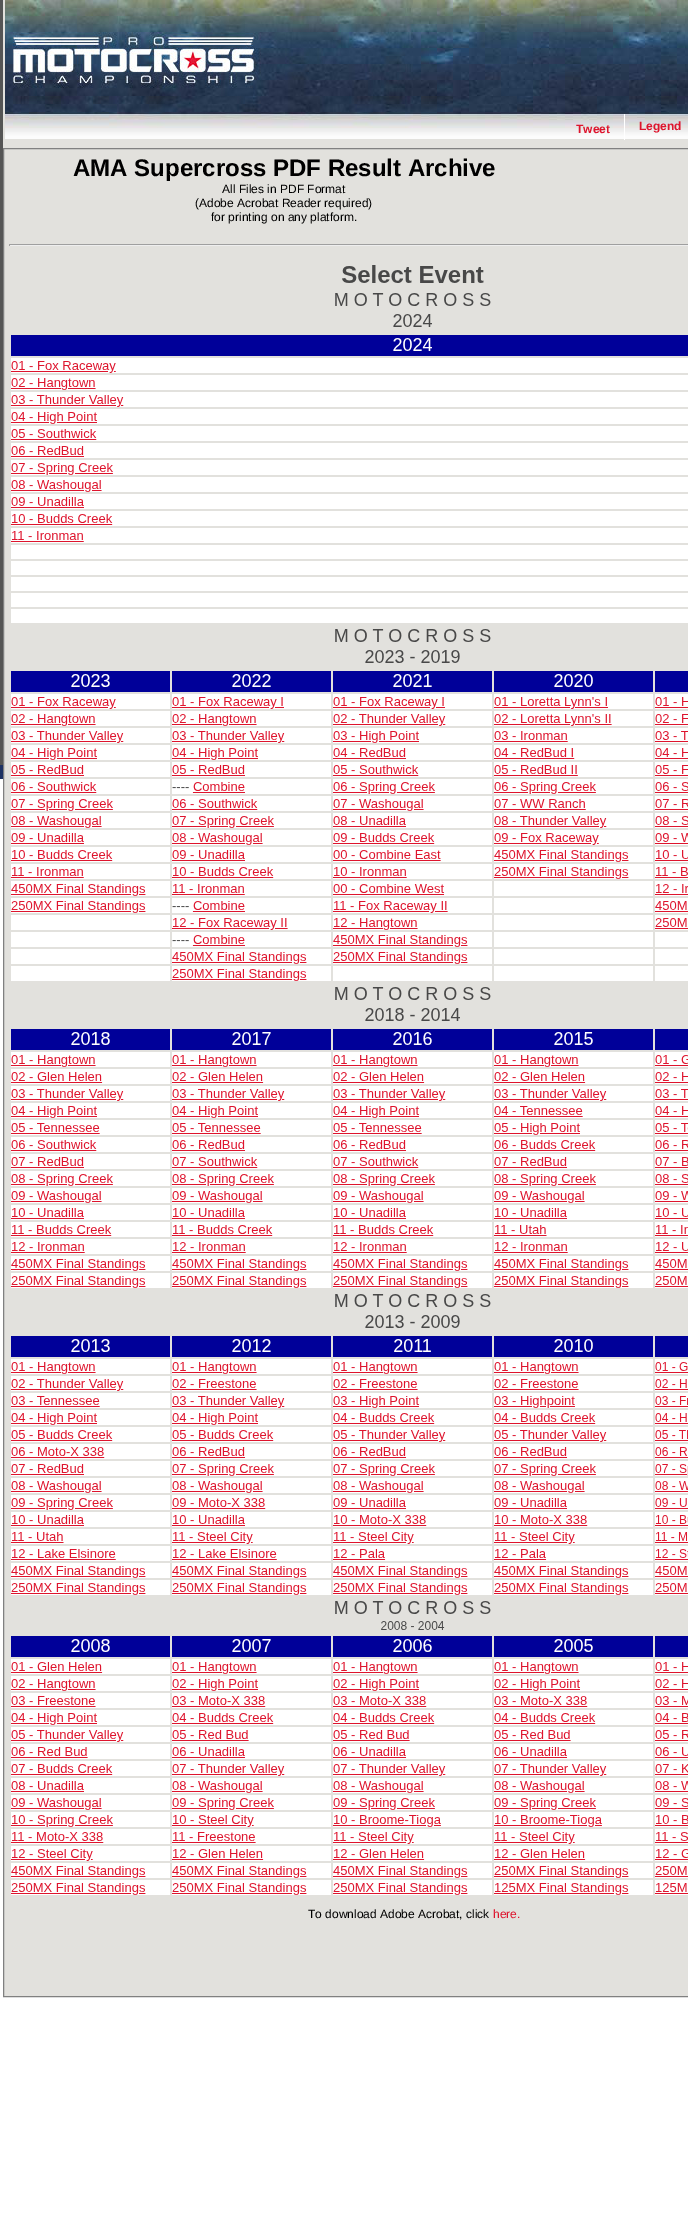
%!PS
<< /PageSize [688 2228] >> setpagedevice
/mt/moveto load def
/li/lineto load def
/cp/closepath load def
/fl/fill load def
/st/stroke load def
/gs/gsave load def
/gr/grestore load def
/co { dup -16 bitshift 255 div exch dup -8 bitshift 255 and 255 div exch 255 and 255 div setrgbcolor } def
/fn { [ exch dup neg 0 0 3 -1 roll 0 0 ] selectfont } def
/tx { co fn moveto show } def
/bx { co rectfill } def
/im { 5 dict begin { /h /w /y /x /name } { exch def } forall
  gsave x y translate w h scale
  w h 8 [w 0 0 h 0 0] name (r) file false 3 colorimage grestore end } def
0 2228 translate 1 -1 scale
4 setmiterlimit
0 0 688 2228 16#FFFFFF bx
(media/1.raw) 0 765 3 14 im
3 0 685 148 16#E2E1DD bx
0 0 3 765 16#555555 bx
(media/2.raw) 5 0 683 139 im
624 114 1 26 16#FFFFFF bx
16#E2E1DD co
3.5 148.5 mt 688.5 148.5 li 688.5 1996.5 li 3.5 1996.5 li cp gs fl gr
16#808080 co
st
9 244 679 1 16#9F9F9F bx
9 245 679 1 16#EEEEEE bx
9 244 1 2 16#9F9F9F bx
(media/3.raw) 11 265 677 1630 im
(Tweet) 576 133 /LiberationSans-Bold 12 16#DE142D tx
(Legend) 639 130 /LiberationSans-Bold 12 16#DE142D tx
(AMA Supercross PDF Result Archive) 73 176 /LiberationSans-Bold 24 16#000000 tx
(All Files in PDF Format) 222 193 /LiberationSans-Regular 12 16#000000 tx
(\(Adobe Acrobat Reader required\)) 195 207 /LiberationSans-Regular 12 16#000000 tx
(for printing on any platform.) 211 221 /LiberationSans-Regular 12 16#000000 tx
(To download Adobe Acrobat, click) 308 1918 /LiberationSans-Regular 12 16#000000 tx
(here.) 493 1918 /LiberationSans-Regular 12 16#DE142D tx
showpage
